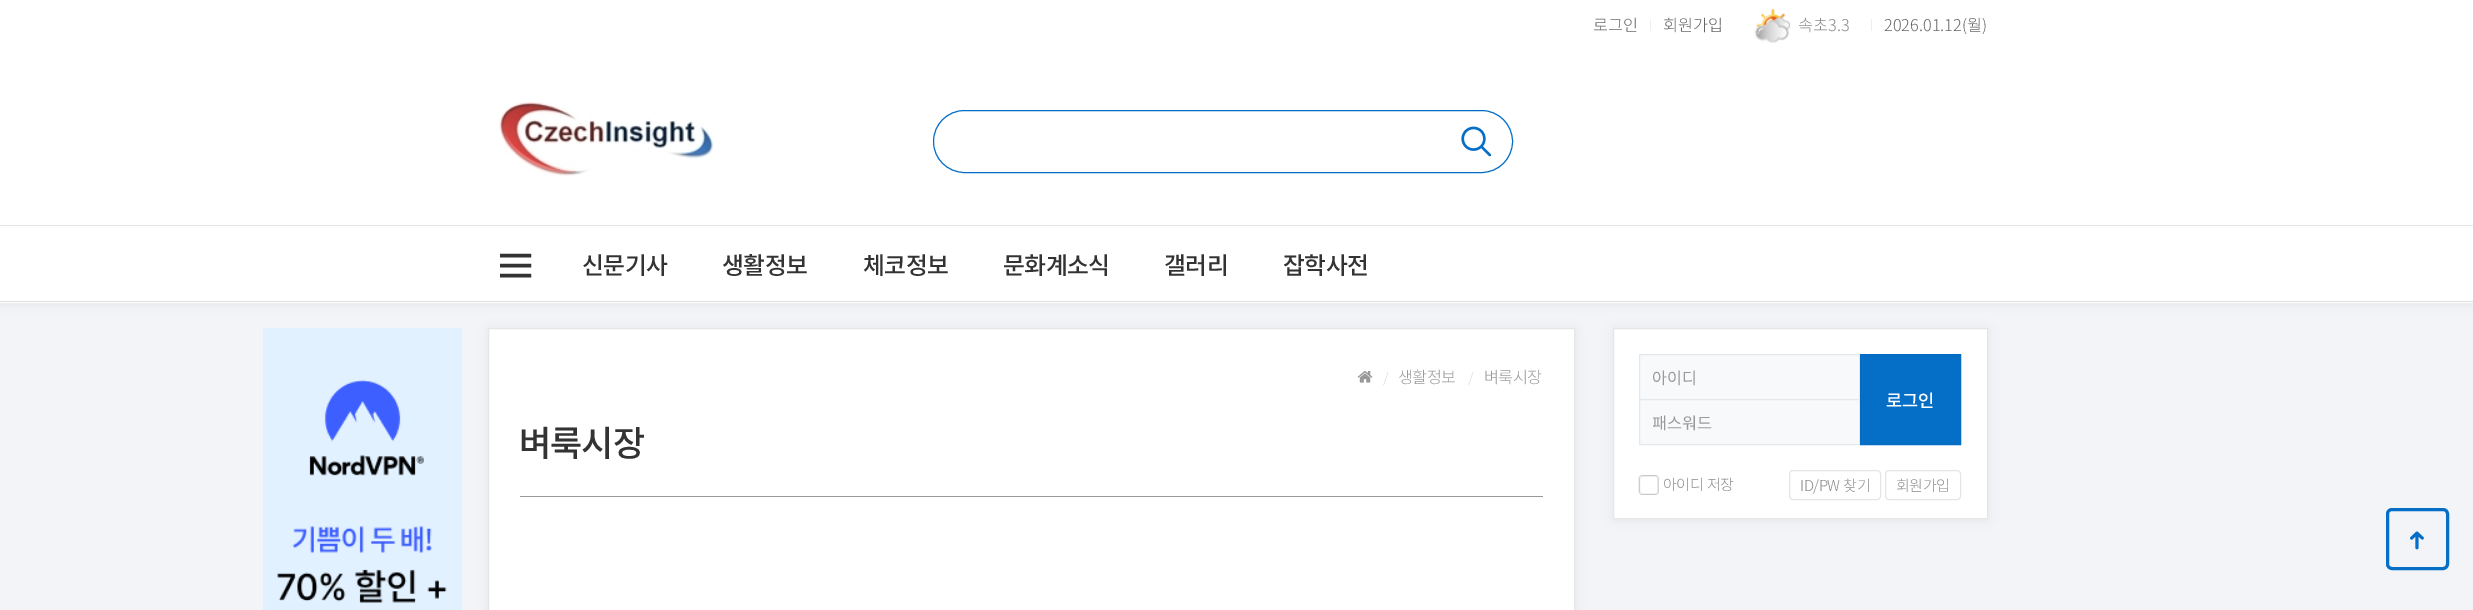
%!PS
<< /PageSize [2473 610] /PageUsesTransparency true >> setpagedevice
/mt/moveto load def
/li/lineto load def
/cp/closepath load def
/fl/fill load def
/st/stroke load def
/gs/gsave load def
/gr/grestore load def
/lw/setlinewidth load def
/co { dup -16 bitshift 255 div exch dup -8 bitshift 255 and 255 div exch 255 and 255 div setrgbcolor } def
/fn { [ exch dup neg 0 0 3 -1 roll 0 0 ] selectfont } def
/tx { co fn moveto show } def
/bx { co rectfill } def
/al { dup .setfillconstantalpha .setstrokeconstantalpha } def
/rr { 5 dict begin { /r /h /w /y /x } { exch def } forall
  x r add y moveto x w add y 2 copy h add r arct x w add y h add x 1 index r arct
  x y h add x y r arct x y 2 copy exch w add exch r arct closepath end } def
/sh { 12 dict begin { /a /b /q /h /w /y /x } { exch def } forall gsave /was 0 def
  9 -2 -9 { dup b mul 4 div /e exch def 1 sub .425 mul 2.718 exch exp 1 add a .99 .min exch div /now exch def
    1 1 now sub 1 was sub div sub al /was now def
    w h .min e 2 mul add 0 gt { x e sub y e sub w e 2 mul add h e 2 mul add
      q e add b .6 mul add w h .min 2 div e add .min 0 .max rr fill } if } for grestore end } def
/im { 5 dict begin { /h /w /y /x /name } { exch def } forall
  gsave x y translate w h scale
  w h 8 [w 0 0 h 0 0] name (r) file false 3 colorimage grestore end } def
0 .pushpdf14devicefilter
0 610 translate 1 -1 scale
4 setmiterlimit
0 0 2473 610 16#F2F4F7 bx
16#000000 co
0 1 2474 303 0 6 .05 sh
0 0 2473 303 16#FFFFFF bx
0 301 2473 1 16#DEDEDE bx
1650 19 1 12 16#EEEEEE bx
(media/1.raw) 1754 8 37 35 im
1871 19 1 12 16#EEEEEE bx
0 225 2473 1 16#E5E5E5 bx
(media/2.raw) 499 102 215 74 im
16#056EC7 co
933.5 110.5 579 62 31 rr st
(media/3.raw) 1461 126 31 31 im
(media/4.raw) 500 253 32 25 im
(media/5.raw) 263 328 199 282 im
16#000000 co
488 329 1087 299 0 6 .05 sh
16#FFFFFF co
488.5 328.5 mt 1574.5 328.5 li 1574.5 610.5 li 488.5 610.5 li cp gs fl gr
16#E6E6E6 co
st
(media/6.raw) 1357 371 16 12 im
520 496 1023 1 16#999999 bx
16#000000 co
1613 329 375 191 0 6 .05 sh
16#FFFFFF co
1613.5 328.5 mt 1987.5 328.5 li 1987.5 518.5 li 1613.5 518.5 li cp gs fl gr
16#E6E6E6 co
st
16#F8F9FA co
1639.5 354.5 mt 1859.5 354.5 li 1859.5 399.5 li 1639.5 399.5 li cp gs fl gr
16#E4E8EB co
st
16#F8F9FA co
1639.5 399.5 mt 1859.5 399.5 li 1859.5 444.5 li 1639.5 444.5 li cp gs fl gr
16#E4E8EB co
st
16#056EC7 co
1860.5 354.5 mt 1960.5 354.5 li 1960.5 444.5 li 1860.5 444.5 li cp gs fl gr
16#056BC1 co
st
(media/7.raw) 1638 475 21 20 im
16#E5E5E5 co
1789.5 470.5 91 29 3.5 rr st
1885.5 470.5 75 29 3.5 rr st
16#056EC7 co
3 lw
2387.5 509.5 60 59 4.5 rr st
(media/8.raw) 2410 531 14 19 im
(로그인) 1593 31 /NotoSansKR-Light 16.25 16#666666 tx
(회원가입) 1663 31 /NotoSansKR-Light 16.25 16#666666 tx
(속초3.3) 1798 31 /NotoSansKR-Light 16.25 16#888888 tx
(2026.01.12\(월\)) 1884 31 /NotoSansKR-Light 16.25 16#666666 tx
/NotoSansKR-Medium 23.75 fn
16#333333 co
582 274 mt -.5 0 (신문기사) ashow
722 274 mt -.5 0 (생활정보) ashow
863 274 mt -.5 0 (체코정보) ashow
1003 274 mt -.5 0 (문화계소식) ashow
1164 274 mt -.5 0 (갤러리) ashow
1283 274 mt -.5 0 (잡학사전) ashow
/NotoSansKR-Light 14 fn
16#D9D9D9 co
1383 383 mt -.5 0 (/) ashow
/NotoSansKR-Light 16.25 fn
16#999999 co
1398 383 mt -.5 0 (생활정보) ashow
/NotoSansKR-Light 14 fn
16#D9D9D9 co
1468 383 mt -.5 0 (/) ashow
/NotoSansKR-Light 16.25 fn
16#999999 co
1484 383 mt -.5 0 (벼룩시장) ashow
/NotoSansKR-Medium 35 fn
16#333333 co
519 456 mt -1 0 (벼룩시장) ashow
(아이디) 1652 384 /NotoSansKR-Regular 16.25 16#999999 tx
gs
1653 410 193 24 rectclip
(패스워드) 1652 429 /NotoSansKR-Regular 16.25 16#999999 tx
gr
(로그인) 1886 407 /NotoSansKR-Medium 17.5 16#FFFFFF tx
/NotoSansKR-Light 15 fn
16#888888 co
1663 490 mt 1 0 32 -.5 0 (아이디 저장) awidthshow
1800 491 mt 1 0 32 -.5 0 (ID/PW 찾기) awidthshow
1896 491 mt -.5 0 (회원가입) ashow
.poppdf14devicefilter showpage
